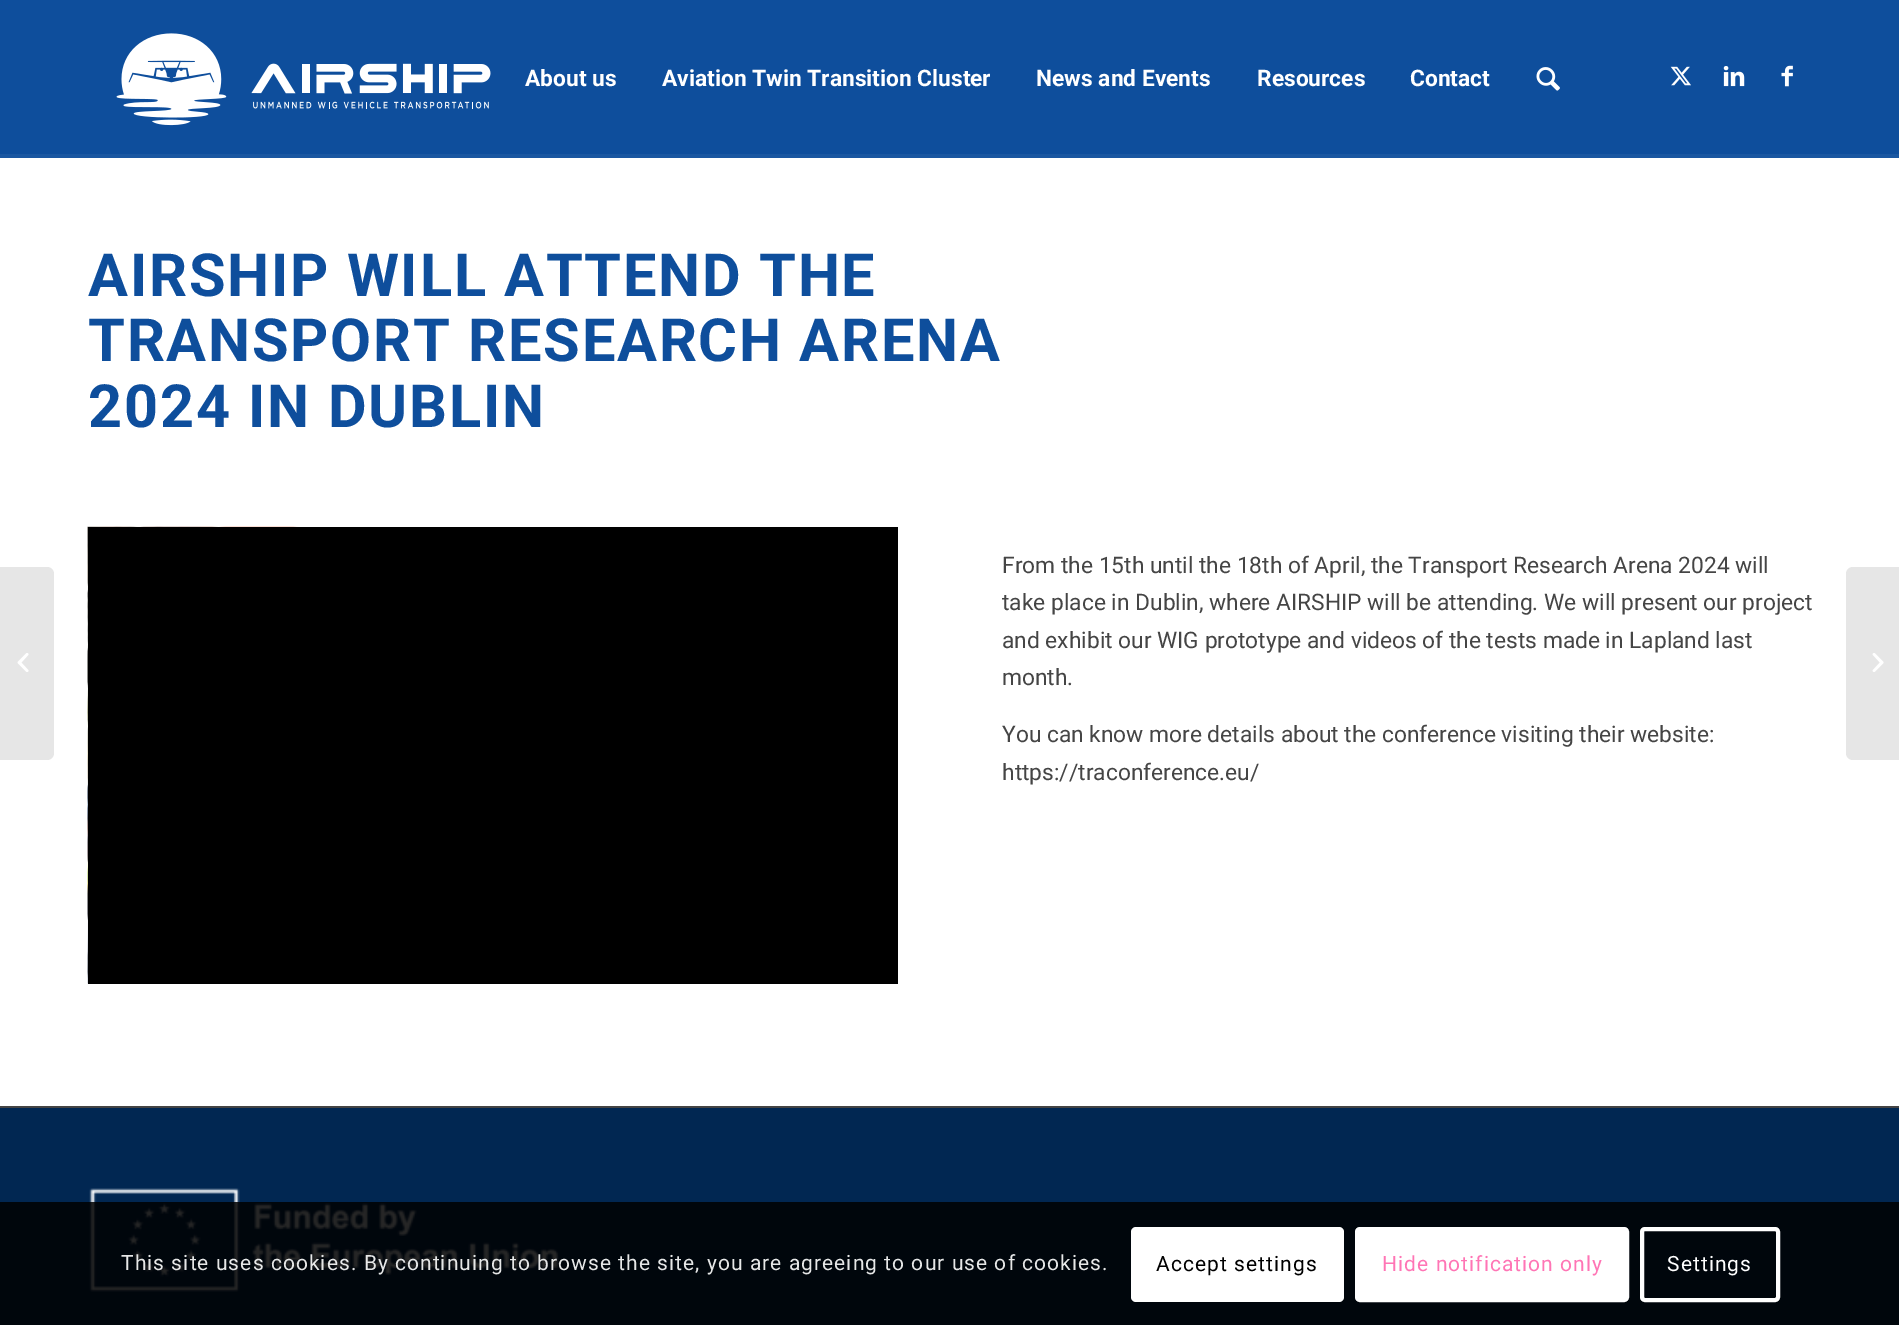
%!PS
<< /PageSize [1899 1325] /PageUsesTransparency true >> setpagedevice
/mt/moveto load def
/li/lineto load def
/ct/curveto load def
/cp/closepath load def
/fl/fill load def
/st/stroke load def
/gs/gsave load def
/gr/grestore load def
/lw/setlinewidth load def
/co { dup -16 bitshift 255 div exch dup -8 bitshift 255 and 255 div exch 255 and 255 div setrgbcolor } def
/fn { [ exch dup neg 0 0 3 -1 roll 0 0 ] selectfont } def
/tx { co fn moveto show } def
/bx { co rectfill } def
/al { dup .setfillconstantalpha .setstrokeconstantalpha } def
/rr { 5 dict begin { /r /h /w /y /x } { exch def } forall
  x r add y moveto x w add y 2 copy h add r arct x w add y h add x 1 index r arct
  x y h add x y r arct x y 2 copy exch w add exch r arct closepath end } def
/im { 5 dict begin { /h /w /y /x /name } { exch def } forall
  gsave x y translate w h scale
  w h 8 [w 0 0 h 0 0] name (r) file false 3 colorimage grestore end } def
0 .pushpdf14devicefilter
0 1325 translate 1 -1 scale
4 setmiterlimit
0 0 1899 1325 16#0E4E9C bx
(media/1.raw) 116 33 375 93 im
(media/2.raw) 1536 67 24 24 im
(media/3.raw) 1670 66 21 20 im
(media/4.raw) 1723 66 22 21 im
(media/5.raw) 1781 65 12 22 im
0 158 1899 948 16#FFFFFF bx
16#E6E6E6 co
0 567 mt 47 567 li 51 567 54 570 54 574 ct 54 753 li 54 757 51 760 47 760 ct 0 760 li cp fl
(media/6.raw) 17 653 12 19 im
0 154 1899 4 16#1A57A1 bx
(media/7.raw) 87 526 811 458 im
88 527 810 457 16#000000 bx
0 1108 1899 217 16#012752 bx
0 1106 1899 2 16#444444 bx
(media/8.raw) 89 1188 470 104 im
16#E6E6E6 co
1853 567 mt 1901 567 li 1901 760 li 1853 760 li 1849 760 1846 757 1846 753 ct 1846 574 li 1846 570 1849 567 1853 567 ct cp fl
(media/9.raw) 1872 653 12 19 im
0.85 al
0 1202 1899 123 16#000000 bx
1 al
16#FFFFFF co
1131 1227 213 75 5 rr fl
1357 1229 270 71 3 rr gs fl gr
4 lw
st
1642 1229 136 71 3 rr st
(About us) 525 86 /Roboto-Bold 22.75 16#FFFFFF tx
(Aviation Twin Transition Cluster) 662 86 /Roboto-Bold 22.75 16#FFFFFF tx
(News and Events) 1036 86 /Roboto-Bold 22.75 16#FFFFFF tx
(Resources) 1257 86 /Roboto-Bold 22.75 16#FFFFFF tx
(Contact) 1410 86 /Roboto-Bold 22.75 16#FFFFFF tx
/Roboto-Bold 59.5 fn
16#0E4E9C co
88 296 mt 1.75 0 (AIRSHIP WILL ATTEND THE) ashow
88 361 mt 1.75 0 (TRANSPORT RESEARCH ARENA) ashow
88 427 mt 1.75 0 (2024 IN DUBLIN) ashow
(From the 15th until the 18th of April, the Transport Research Arena 2024 will) 1002 573 /Roboto-Regular 22.75 16#454545 tx
(take place in Dublin, where AIRSHIP will be attending. We will present our project) 1002 610 /Roboto-Regular 22.75 16#454545 tx
(and exhibit our WIG prototype and videos of the tests made in Lapland last) 1002 648 /Roboto-Regular 22.75 16#454545 tx
(month.) 1002 685 /Roboto-Regular 22.75 16#454545 tx
(You can know more details about the conference visiting their website:) 1002 742 /Roboto-Regular 22.75 16#454545 tx
(https://traconference.eu/) 1002 780 /Roboto-Regular 22.75 16#454545 tx
/Roboto-Regular 21 fn
16#E6E7E7 co
121 1270 mt 1.05 0 (This site uses cookies. By continuing to browse the site, you are agreeing to our use of cookies.) ashow
16#000000 co
1156 1271 mt 1.05 0 (Accept settings) ashow
16#FF75B5 co
1382 1271 mt 1.05 0 (Hide notification only) ashow
16#FFFFFF co
1667 1271 mt 1.05 0 (Settings) ashow
.poppdf14devicefilter showpage
